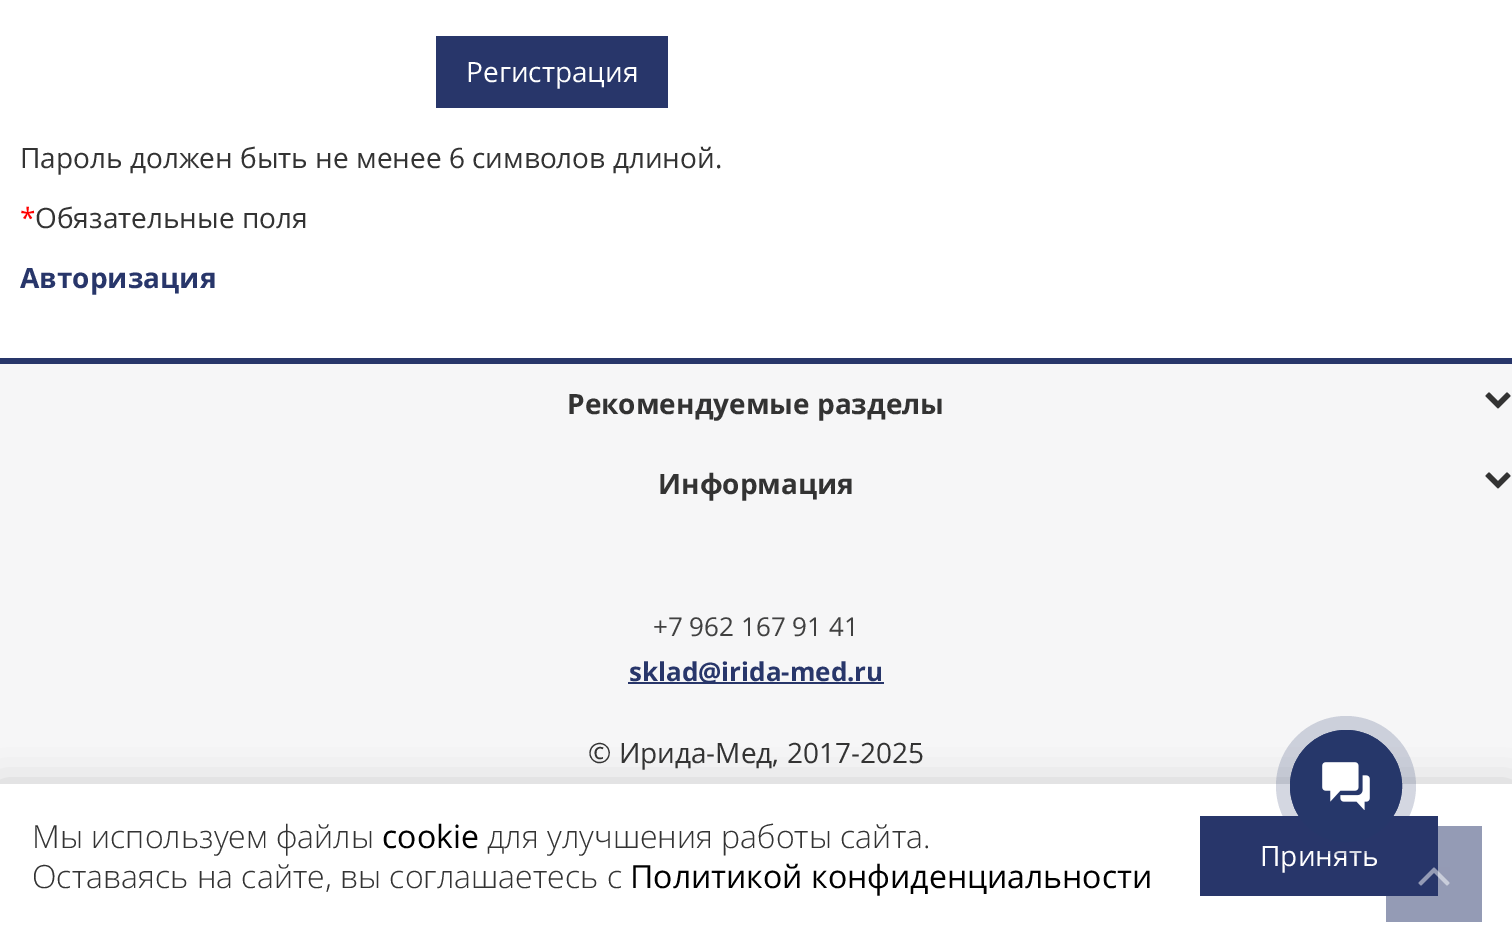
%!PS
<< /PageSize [1512 951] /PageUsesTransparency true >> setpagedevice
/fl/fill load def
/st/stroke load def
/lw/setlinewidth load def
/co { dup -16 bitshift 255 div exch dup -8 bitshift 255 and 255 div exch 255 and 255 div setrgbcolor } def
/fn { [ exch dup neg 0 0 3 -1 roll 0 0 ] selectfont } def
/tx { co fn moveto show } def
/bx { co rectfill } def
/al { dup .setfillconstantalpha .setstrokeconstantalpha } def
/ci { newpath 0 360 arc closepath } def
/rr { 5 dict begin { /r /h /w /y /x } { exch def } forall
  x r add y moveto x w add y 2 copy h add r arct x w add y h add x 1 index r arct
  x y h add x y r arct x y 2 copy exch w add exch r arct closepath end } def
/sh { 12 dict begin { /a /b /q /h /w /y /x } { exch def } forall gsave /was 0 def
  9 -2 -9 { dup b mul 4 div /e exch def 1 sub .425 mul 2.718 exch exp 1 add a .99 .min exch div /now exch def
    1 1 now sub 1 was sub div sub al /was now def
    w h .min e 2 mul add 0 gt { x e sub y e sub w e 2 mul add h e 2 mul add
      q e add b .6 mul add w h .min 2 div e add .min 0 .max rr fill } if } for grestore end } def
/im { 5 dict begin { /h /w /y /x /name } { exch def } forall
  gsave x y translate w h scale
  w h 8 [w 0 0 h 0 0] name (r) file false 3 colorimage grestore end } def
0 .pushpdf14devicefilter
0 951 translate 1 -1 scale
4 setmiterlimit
0 0 1512 951 16#FFFFFF bx
436 36 232 72 16#28366A bx
0 364 1512 420 16#F6F6F7 bx
16#000000 co
0 792 1512 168 0 20 .25 sh
0 784 1512 167 16#FFFFFF bx
1386 826 96 96 16#949BB5 bx
1200 816 238 80 16#28366A bx
0 358 1512 6 16#28366A bx
(media/1.raw) 1485 392 26 17 im
(media/1.raw) 1485 472 26 17 im
628 682 256 2 16#28366A bx
(media/3.raw) 1418 867 32 19 im
(Регистрация) 466 82 /OpenSans-Regular 28 16#FFFFFF tx
(Пароль должен быть не менее 6 символов длиной.) 20 168 /OpenSans-Regular 28 16#333333 tx
(*) 20 228 /OpenSans-Regular 28 16#FF0000 tx
(Обязательные поля) 35 228 /OpenSans-Regular 28 16#333333 tx
(Авторизация) 20 288 /OpenSans-Bold 28 16#28366A tx
(Мы используем файлы) 32 848 /OpenSans-Light 32 16#333333 tx
(cookie) 382 848 /OpenSans-Regular 32 16#000000 tx
(для улучшения работы сайта.) 487 848 /OpenSans-Light 32 16#333333 tx
(Оставаясь на сайте, вы соглашаетесь с) 32 888 /OpenSans-Light 32 16#333333 tx
(Политикой конфиденциальности) 630 888 /OpenSans-Regular 32 16#000000 tx
(Принять) 1260 866 /OpenSans-Regular 28 16#FFFFFF tx
(Рекомендуемые разделы) 567 414 /OpenSans-Bold 28 16#333333 tx
(Информация) 658 494 /OpenSans-Bold 28 16#333333 tx
(+7 962 167 91 41) 653 636 /OpenSans-Regular 26 16#414141 tx
(sklad@irida-med.ru) 629 681 /OpenSans-Bold 26 16#28366A tx
(© Ирида-Мед, 2017-2025) 588 763 /OpenSans-Regular 28 16#333333 tx
0.2 al
16#26376A co
1346 786 70 ci fl
1 al
2 lw
1346 786 55 ci st
1346 786 56 ci fl
(media/2.raw) 1322 762 48 48 im
.poppdf14devicefilter showpage
